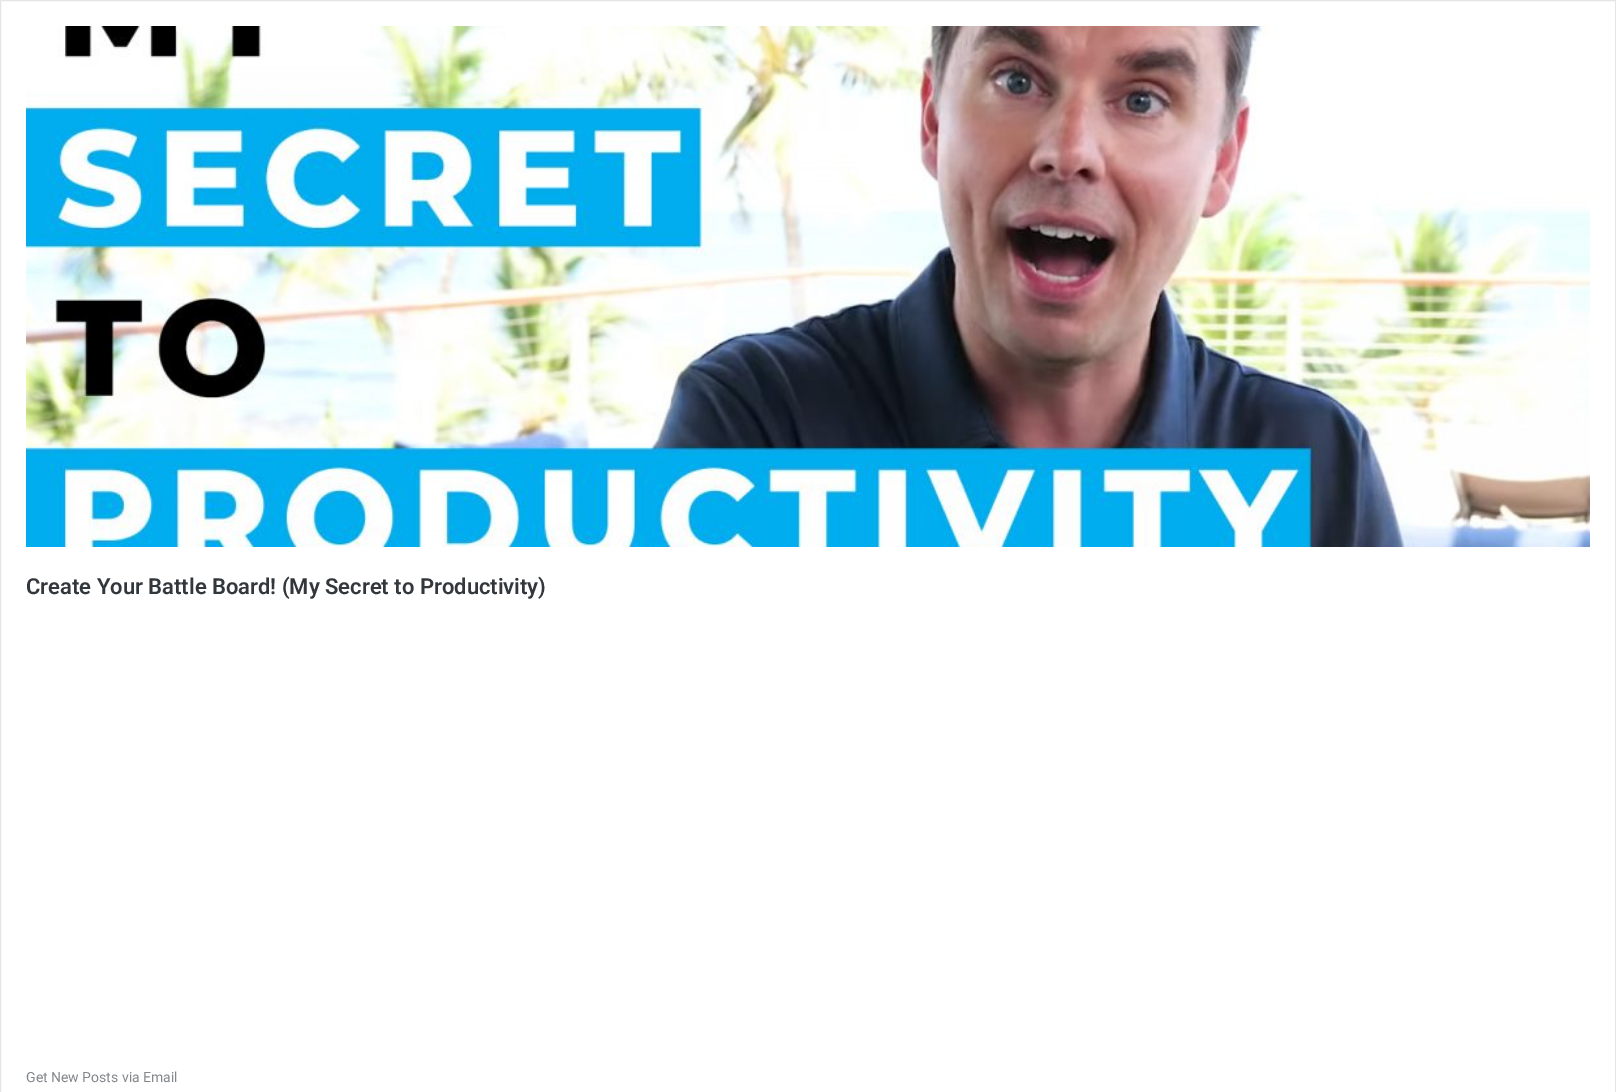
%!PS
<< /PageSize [1616 1092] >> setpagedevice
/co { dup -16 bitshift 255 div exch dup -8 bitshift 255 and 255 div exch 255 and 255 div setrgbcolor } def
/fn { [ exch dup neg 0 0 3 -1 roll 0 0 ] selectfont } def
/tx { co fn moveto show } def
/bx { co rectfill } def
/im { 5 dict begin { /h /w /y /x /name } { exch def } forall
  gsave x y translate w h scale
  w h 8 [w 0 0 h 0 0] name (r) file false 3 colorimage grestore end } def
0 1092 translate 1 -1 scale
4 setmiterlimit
0 0 1616 1092 16#FFFFFF bx
16#E5E5E5 co
.5 .5 1615 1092 rectstroke
(media/1.raw) 26 26 1564 521 im
(Create Your Battle Board! \(My Secret to Productivity\)) 26 594 /Roboto-SemiBold 22 16#32373C tx
(Get New Posts via Email) 26 1082 /Roboto-Regular 14 16#82878C tx
showpage
